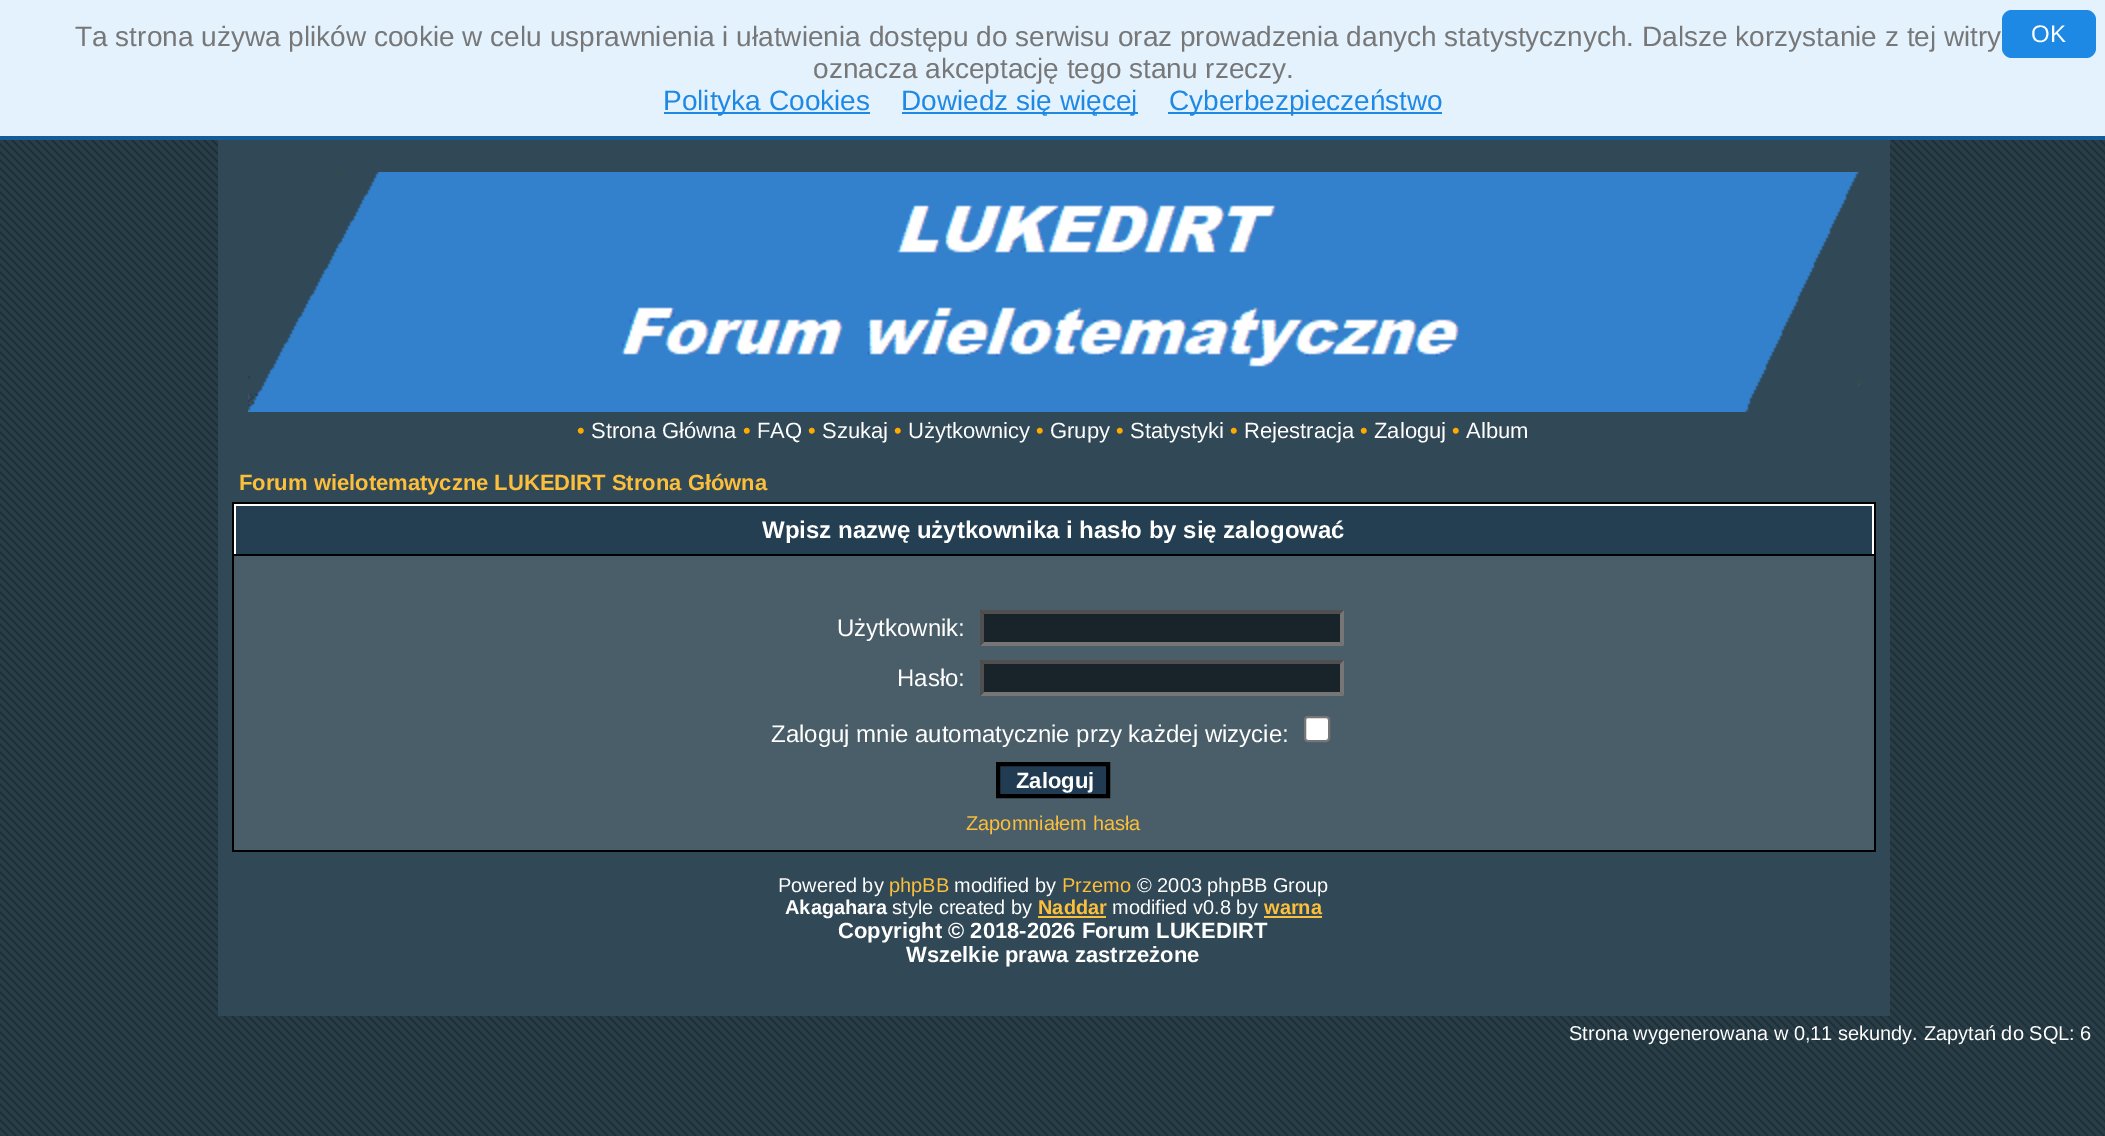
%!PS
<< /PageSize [2105 1136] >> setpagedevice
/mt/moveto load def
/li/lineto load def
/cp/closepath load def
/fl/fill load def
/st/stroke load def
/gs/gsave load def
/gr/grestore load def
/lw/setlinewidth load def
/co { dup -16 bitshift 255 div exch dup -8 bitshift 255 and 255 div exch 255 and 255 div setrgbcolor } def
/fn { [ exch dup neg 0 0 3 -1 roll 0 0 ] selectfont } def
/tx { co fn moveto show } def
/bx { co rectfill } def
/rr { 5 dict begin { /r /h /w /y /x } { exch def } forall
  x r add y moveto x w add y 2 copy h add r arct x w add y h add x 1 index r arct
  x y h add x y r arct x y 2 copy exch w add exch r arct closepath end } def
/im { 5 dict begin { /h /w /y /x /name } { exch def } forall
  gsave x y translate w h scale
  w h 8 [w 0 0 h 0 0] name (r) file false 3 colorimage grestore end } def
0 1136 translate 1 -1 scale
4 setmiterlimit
0 0 2105 1136 16#FFFFFF bx
(media/1.raw) 0 140 2105 996 im
218 140 1672 876 16#314856 bx
0 0 2105 136 16#E3F2FD bx
0 136 2105 4 16#145B99 bx
16#1E88E5 co
2002 10 94 48 10 rr fl
664 112 206 2 16#1E88E5 bx
902 112 236 2 16#1E88E5 bx
1168 112 274 2 16#1E88E5 bx
(media/2.raw) 248 172 1612 240 im
232 502 1644 350 16#000000 bx
236 506 1636 48 16#243F52 bx
234 504 1640 2 16#FFFFFF bx
1872 504 2 50 16#FFFFFF bx
234 504 2 50 16#FFFFFF bx
234 556 1640 294 16#4A5E69 bx
980 610 364 36 16#182429 bx
16#4F4F4F co
980 610 mt 1344 610 li 1340 614 li 984 614 li cp fl
16#767676 co
1344 610 mt 1344 646 li 1340 642 li 1340 614 li cp fl
1344 646 mt 980 646 li 984 642 li 1340 642 li cp fl
16#4F4F4F co
980 646 mt 980 610 li 984 614 li 984 642 li cp fl
980 660 364 36 16#182429 bx
16#4F4F4F co
980 660 mt 1344 660 li 1340 664 li 984 664 li cp fl
16#767676 co
1344 660 mt 1344 696 li 1340 692 li 1340 664 li cp fl
1344 696 mt 980 696 li 984 692 li 1340 692 li cp fl
16#4F4F4F co
980 696 mt 980 660 li 984 664 li 984 692 li cp fl
16#FFFFFF co
1305 717 24 24 3 rr gs fl gr
16#767676 co
2 lw
st
16#213C52 co
998 764 mt 1108 764 li 1108 796 li 998 796 li cp gs fl gr
16#000000 co
4 lw
st
1038 916 68 2 16#FBBF3B bx
1264 916 58 2 16#FBBF3B bx
(Ta strona używa plików cookie w celu usprawnienia i ułatwienia dostępu do serwisu oraz prowadzenia danych statystycznych. Dalsze korzystanie z tej witry) 75 46 /LiberationSans-Regular 28 16#777777 tx
(OK) 2031 42 /LiberationSans-Regular 24 16#FFFFFF tx
(oznacza akceptację tego stanu rzeczy.) 813 78 /LiberationSans-Regular 28 16#777777 tx
(Polityka Cookies) 663 110 /LiberationSans-Regular 28 16#1E88E5 tx
(Dowiedz się więcej) 901 110 /LiberationSans-Regular 28 16#1E88E5 tx
(Cyberbezpieczeństwo) 1169 110 /LiberationSans-Regular 28 16#1E88E5 tx
(•) 577 438 /LiberationSans-Regular 22 16#FFAA00 tx
(Strona Główna) 591 438 /LiberationSans-Regular 22 16#FFFFFF tx
(•) 743 438 /LiberationSans-Regular 22 16#FFAA00 tx
(FAQ) 757 438 /LiberationSans-Regular 22 16#FFFFFF tx
(•) 808 438 /LiberationSans-Regular 22 16#FFAA00 tx
(Szukaj) 822 438 /LiberationSans-Regular 22 16#FFFFFF tx
(•) 894 438 /LiberationSans-Regular 22 16#FFAA00 tx
(Użytkownicy) 908 438 /LiberationSans-Regular 22 16#FFFFFF tx
(•) 1036 438 /LiberationSans-Regular 22 16#FFAA00 tx
(Grupy) 1050 438 /LiberationSans-Regular 22 16#FFFFFF tx
(•) 1116 438 /LiberationSans-Regular 22 16#FFAA00 tx
(Statystyki) 1130 438 /LiberationSans-Regular 22 16#FFFFFF tx
(•) 1230 438 /LiberationSans-Regular 22 16#FFAA00 tx
(Rejestracja) 1244 438 /LiberationSans-Regular 22 16#FFFFFF tx
(•) 1360 438 /LiberationSans-Regular 22 16#FFAA00 tx
(Zaloguj) 1374 438 /LiberationSans-Regular 22 16#FFFFFF tx
(•) 1452 438 /LiberationSans-Regular 22 16#FFAA00 tx
(Album) 1466 438 /LiberationSans-Regular 22 16#FFFFFF tx
(Forum wielotematyczne LUKEDIRT Strona Główna) 239 490 /LiberationSans-Bold 22 16#FBBF3B tx
(Wpisz nazwę użytkownika i hasło by się zalogować) 762 538 /LiberationSans-Bold 24 16#FFFFFF tx
(Użytkownik:) 837 636 /LiberationSans-Regular 24 16#FFFFFF tx
(Hasło:) 897 686 /LiberationSans-Regular 24 16#FFFFFF tx
(Zaloguj mnie automatycznie przy każdej wizycie:) 771 742 /LiberationSans-Regular 24 16#FFFFFF tx
(Zaloguj) 1016 788 /LiberationSans-Bold 22 16#FFFFFF tx
(Zapomniałem hasła) 966 830 /LiberationSans-Regular 20 16#FBBF3B tx
(Powered by) 778 892 /LiberationSans-Regular 20 16#FFFFFF tx
(phpBB) 889 892 /LiberationSans-Regular 20 16#FBBF3B tx
(modified by) 954 892 /LiberationSans-Regular 20 16#FFFFFF tx
(Przemo) 1062 892 /LiberationSans-Regular 20 16#FBBF3B tx
(© 2003 phpBB Group) 1137 892 /LiberationSans-Regular 20 16#FFFFFF tx
(Akagahara) 785 914 /LiberationSans-Bold 20 16#FFFFFF tx
(style created by) 892 914 /LiberationSans-Regular 20 16#FFFFFF tx
(Naddar) 1038 914 /LiberationSans-Bold 20 16#FBBF3B tx
(modified v0.8 by) 1112 914 /LiberationSans-Regular 20 16#FFFFFF tx
(warna) 1264 914 /LiberationSans-Bold 20 16#FBBF3B tx
(Copyright © 2018-2026 Forum LUKEDIRT) 838 938 /LiberationSans-Bold 22 16#FFFFFF tx
(Wszelkie prawa zastrzeżone) 906 962 /LiberationSans-Bold 22 16#FFFFFF tx
(Strona wygenerowana w 0,11 sekundy. Zapytań do SQL: 6) 1569 1040 /LiberationSans-Regular 20 16#FFFFFF tx
showpage
